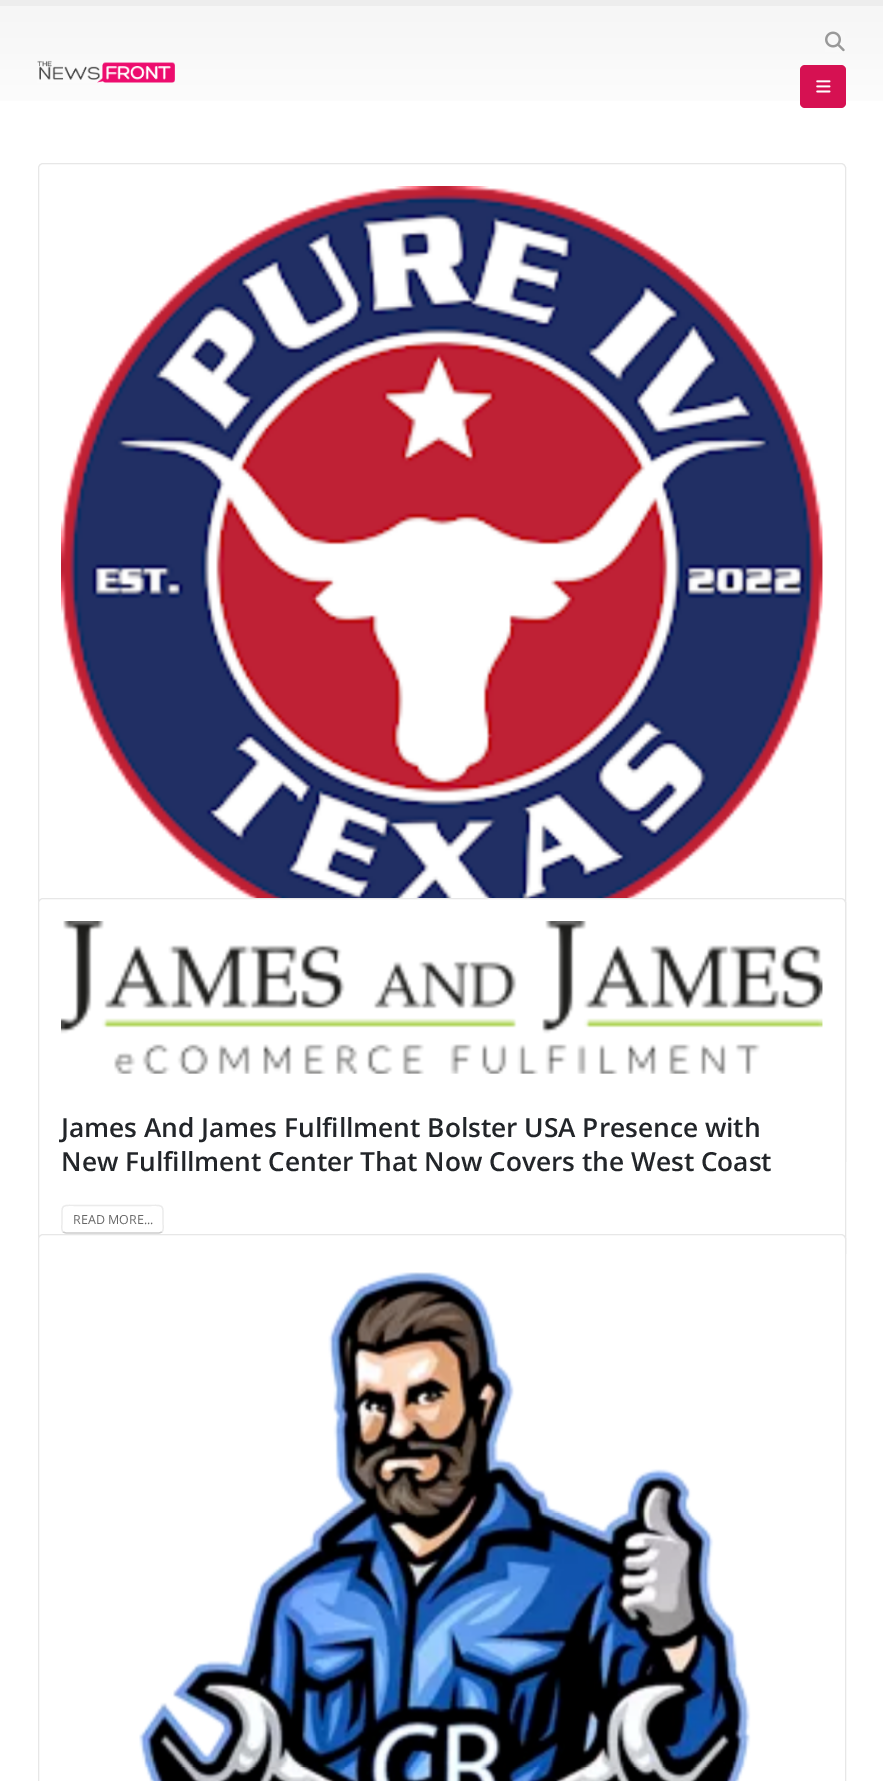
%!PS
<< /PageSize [883 1781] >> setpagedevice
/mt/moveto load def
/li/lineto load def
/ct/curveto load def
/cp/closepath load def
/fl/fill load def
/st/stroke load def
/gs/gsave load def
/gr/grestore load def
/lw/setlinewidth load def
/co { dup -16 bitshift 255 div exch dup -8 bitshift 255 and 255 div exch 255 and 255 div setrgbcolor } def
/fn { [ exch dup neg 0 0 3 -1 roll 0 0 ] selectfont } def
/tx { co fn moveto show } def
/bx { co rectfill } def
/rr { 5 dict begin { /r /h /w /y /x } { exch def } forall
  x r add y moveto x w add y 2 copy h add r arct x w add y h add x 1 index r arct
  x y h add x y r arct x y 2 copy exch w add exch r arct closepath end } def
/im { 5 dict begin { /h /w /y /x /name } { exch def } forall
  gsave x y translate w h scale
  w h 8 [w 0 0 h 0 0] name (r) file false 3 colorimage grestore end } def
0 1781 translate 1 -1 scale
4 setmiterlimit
0 0 883 1781 16#FFFFFF bx
0 0 883 6 16#EDEDED bx
gs 0 6 mt 883 6 li 883 101 li 0 101 li cp clip newpath
<< /ShadingType 2 /ColorSpace /DeviceRGB /Coords [442 6.2 442 138] /Extend [true true] /Function << /FunctionType 2 /Domain [0 1] /C0 [.965 .965 .965] /C1 [1 1 1] /N 1 >> >> shfill gr
(media/1.raw) 37 60 138 23 im
(media/2.raw) 825 31 20 21 im
16#D61152 co
800 65 46 43 5 rr fl
(media/3.raw) 816 80 15 13 im
16#E7E7E7 co
38.5 163.5 807 1002 4.5 rr st
(media/4.raw) 61 186 762 712 im
16#FFFFFF co
38.5 898.5 807 359 4.5 rr gs fl gr
16#E7E7E7 co
st
(media/5.raw) 61 921 762 153 im
16#CCCCCC co
1.2 lw
162 1232 mt 159 1233 li 66 1233 li 63 1232 li st
16#EBEBEB co
63 1232 mt 61 1229.5 62 1225.5 62 1222.5 ct 62 1202.5 59.5 1205.5 81.5 1205.5 ct 143.5 1205.5 li 165.5 1205.5 163 1202.5 163 1222.5 ct 163 1225.5 164 1229.5 162 1232 ct st
16#FFFFFF co
38.5 1234.5 807 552 4.5 rr gs fl gr
16#E7E7E7 co
1 lw
st
(media/6.raw) 139 1272 612 509 im
(James And James Fulfillment Bolster USA Presence with) 61 1137 /OpenSans-SemiBold 26.25 16#222529 tx
(New Fulfillment Center That Now Covers the West Coast) 61 1171 /OpenSans-SemiBold 26.25 16#222529 tx
(READ MORE...) 73 1224 /OpenSans-Regular 12.5 16#666666 tx
showpage
